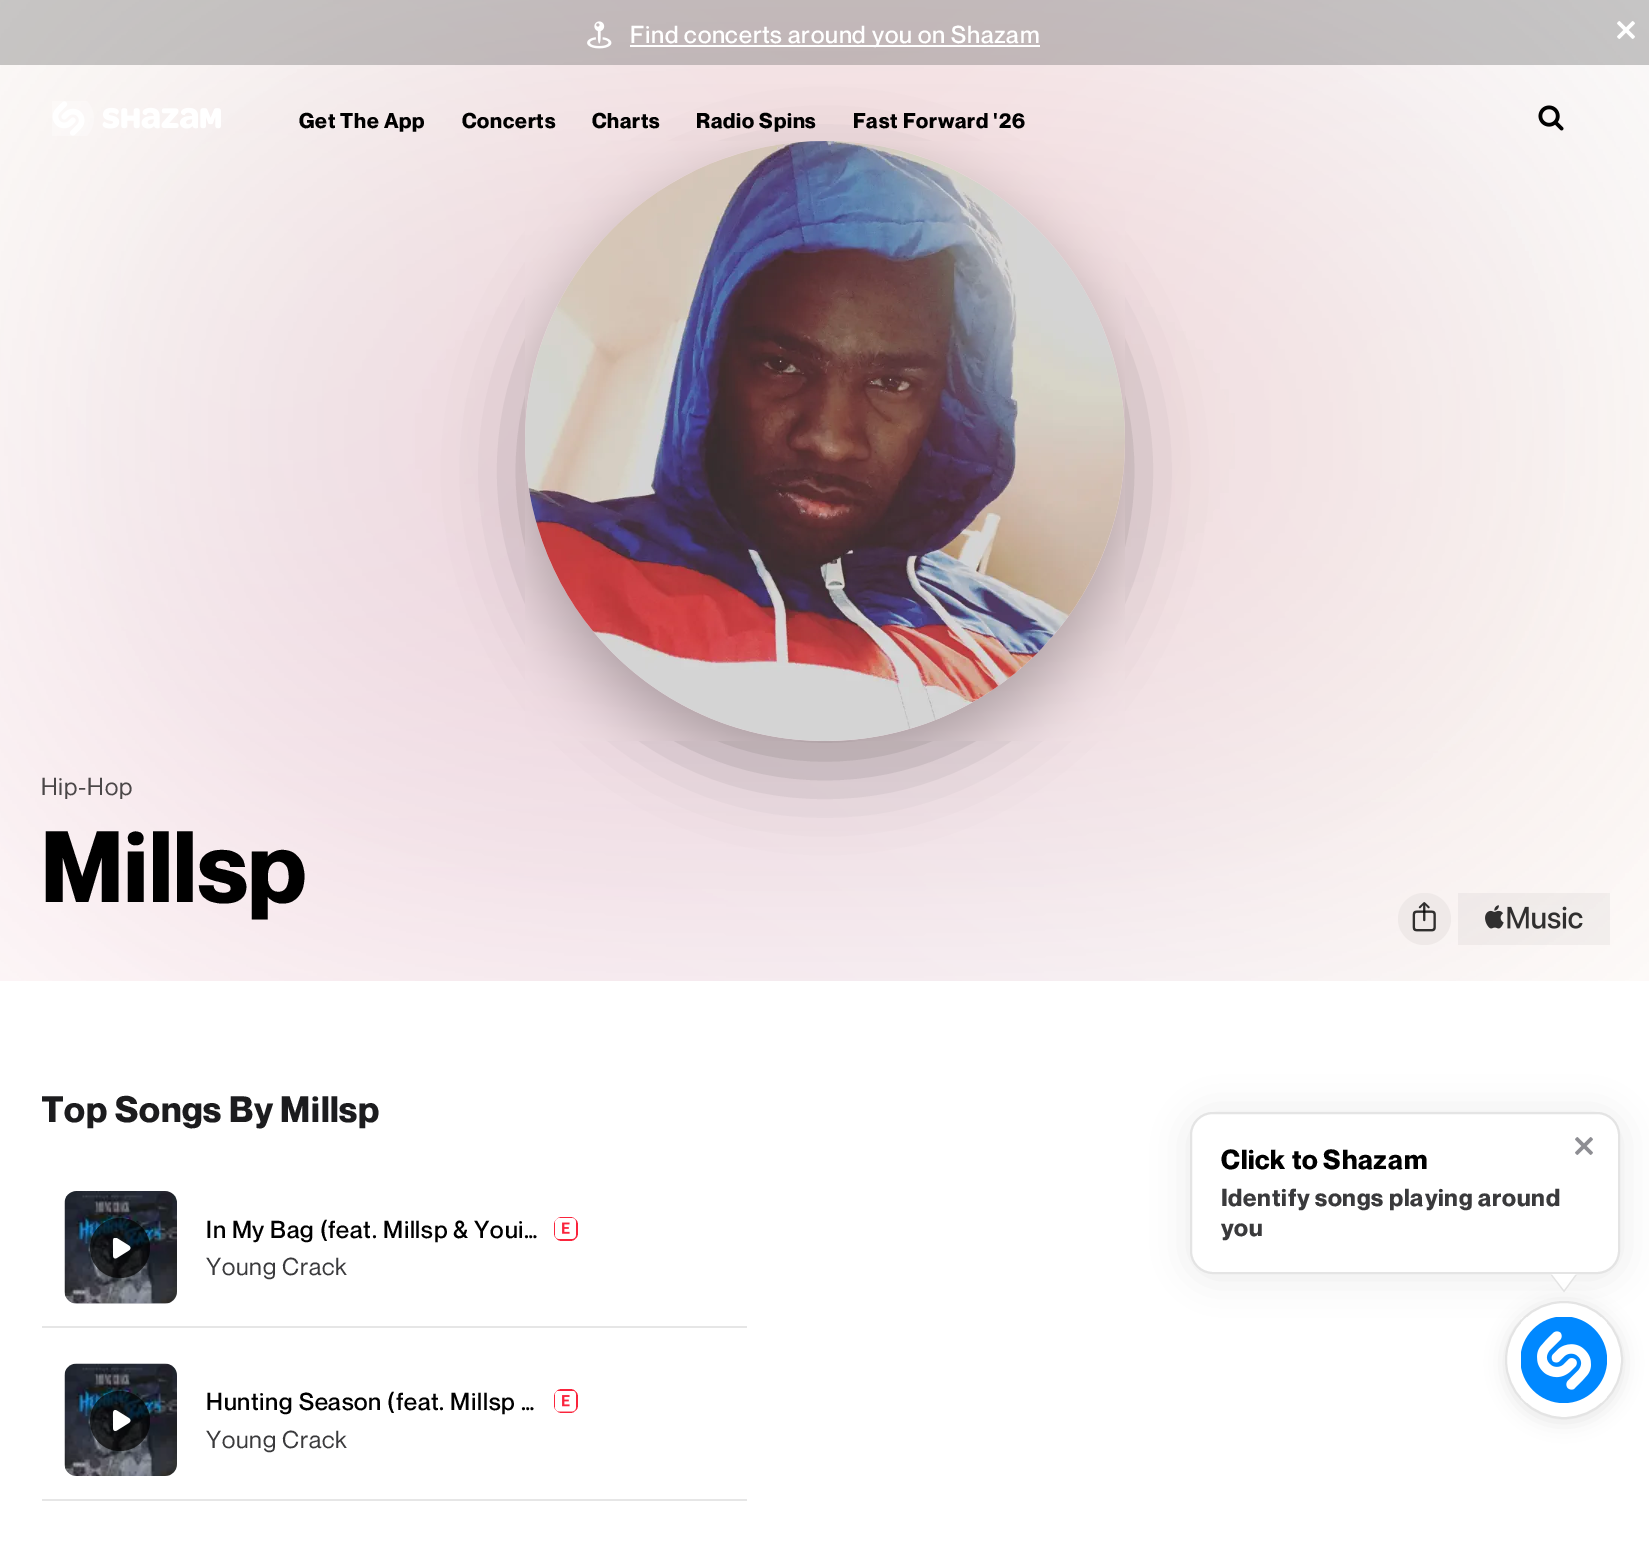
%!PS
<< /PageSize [1649 1566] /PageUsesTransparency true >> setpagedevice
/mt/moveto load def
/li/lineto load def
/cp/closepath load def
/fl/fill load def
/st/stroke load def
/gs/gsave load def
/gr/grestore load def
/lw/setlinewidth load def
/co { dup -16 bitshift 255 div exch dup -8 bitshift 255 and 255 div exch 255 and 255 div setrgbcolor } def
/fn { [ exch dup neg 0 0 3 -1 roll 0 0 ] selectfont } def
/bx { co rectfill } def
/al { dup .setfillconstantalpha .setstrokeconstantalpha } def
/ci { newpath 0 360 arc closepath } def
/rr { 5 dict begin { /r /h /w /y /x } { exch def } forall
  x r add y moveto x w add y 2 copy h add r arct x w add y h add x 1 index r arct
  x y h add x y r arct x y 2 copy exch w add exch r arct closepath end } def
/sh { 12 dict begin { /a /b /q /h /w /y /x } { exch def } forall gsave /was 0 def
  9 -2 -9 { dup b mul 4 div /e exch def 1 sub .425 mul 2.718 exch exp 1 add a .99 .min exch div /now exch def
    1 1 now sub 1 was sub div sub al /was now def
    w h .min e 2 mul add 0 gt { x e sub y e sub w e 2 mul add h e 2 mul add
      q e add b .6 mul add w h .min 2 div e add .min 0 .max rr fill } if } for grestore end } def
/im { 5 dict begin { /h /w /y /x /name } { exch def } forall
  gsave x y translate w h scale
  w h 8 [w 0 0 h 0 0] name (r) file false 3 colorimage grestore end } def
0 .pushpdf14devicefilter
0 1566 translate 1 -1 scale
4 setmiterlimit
0 0 1649 1566 16#FFFFFF bx
(media/5.raw) 0 0 1649 981 im
16#000000 co
525 171 600 600 300 37.5 .3 sh
0.35 al
0 0 1649 65 16#646464 bx
1 al
(media/1.raw) 587 21 25 28 im
630 45 410 2 16#FFFFFF bx
(media/2.raw) 1617 21 18 18 im
(media/3.raw) 52 101 169 35 im
(media/4.raw) 1538 105 26 26 im
(media/6.raw) 525 141 600 600 im
16#EFE9E8 co
1398 893 53 52 26 rr fl
(media/7.raw) 1412 902 24 30 im
0.04 al
1458 893 152 52 16#000000 bx
1 al
(media/8.raw) 1485 905 98 24 im
16#D1D1D6 co
65 1191 112 113 12 rr fl
(media/9.raw) 64 1191 113 113 im
0.7 al
16#000000 co
120 1248 30 ci fl
1 al
(media/10.raw) 113 1238 18 21 im
16#FA243C co
554 1217 24 24 8 rr fl
(media/11.raw) 555 1218 21 21 im
42 1326 705 2 16#E6E6E6 bx
(media/12.raw) 64 1363 113 113 im
0.7 al
16#000000 co
120 1421 30 ci fl
1 al
(media/13.raw) 113 1410 18 21 im
16#FA243C co
554 1389 24 24 8 rr fl
(media/14.raw) 555 1391 21 21 im
42 1499 705 2 16#E6E6E6 bx
16#000000 co
1190 1115 430 162 23 18 .08 sh
16#FFFFFF co
1191 1113 428 160 22 rr gs fl gr
16#E4E4E4 co
2 lw
st
(media/15.raw) 1575 1137 18 18 im
gs
1551 1275 26 21 rectclip
4.5 lw
1552.5 1273.5 mt 1575 1273.5 li 1564 1288.5 li cp st
gr
gs
1551 1274 26 22 rectclip
16#FFFFFF co
1552.5 1273.5 mt 1575 1273.5 li 1564 1288.5 li cp gs fl gr
1.5 lw
st
gr
16#000000 co
1505 1304 118 118 59 9.5 .1 sh
16#FFFFFF co
1564 1360 58 ci gs fl gr
16#E4E4E4 co
st
(media/16.raw) 1521 1317 86 86 im
/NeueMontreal-Medium 24 fn
16#FFFFFF co
630 43 mt .75 0 (Find concerts around you on Shazam) ashow
/NeueMontreal-Bold 21 fn
16#000000 co
299 128 mt .75 0 (Get The App) ashow
462 128 mt .75 0 (Concerts) ashow
592 128 mt .75 0 (Charts) ashow
696 128 mt .75 0 (Radio Spins) ashow
853 128 mt .75 0 (Fast Forward '26) ashow
/NeueMontreal-Regular 24 fn
16#4B4748 co
41 795 mt .75 0 (Hip-Hop) ashow
/NeueMontreal-Bold 99 fn
16#000000 co
41 902 mt .75 0 (Millsp) ashow
gs
42 1050 1568 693 rectclip
/NeueMontreal-Bold 36 fn
16#1C1C1E co
41 1122 mt .75 0 (Top Songs By Millsp) ashow
gr
/NeueMontreal-Medium 24 fn
206 1238 mt .75 0 (In My Bag \(feat. Millsp & Youi…) ashow
/NeueMontreal-Regular 24 fn
16#3A3A3C co
206 1275 mt .75 0 (Young Crack) ashow
/NeueMontreal-Medium 24 fn
16#000000 co
206 1410 mt .75 0 (Hunting Season \(feat. Millsp …) ashow
/NeueMontreal-Regular 24 fn
16#3A3A3C co
206 1448 mt .75 0 (Young Crack) ashow
/NeueMontreal-Bold 27 fn
16#000000 co
1221 1169 mt .75 0 (Click to Shazam) ashow
/NeueMontreal-Bold 24 fn
16#3A3A3C co
1221 1206 mt .75 0 (Identify songs playing around) ashow
1221 1236 mt .75 0 (you) ashow
.poppdf14devicefilter showpage
